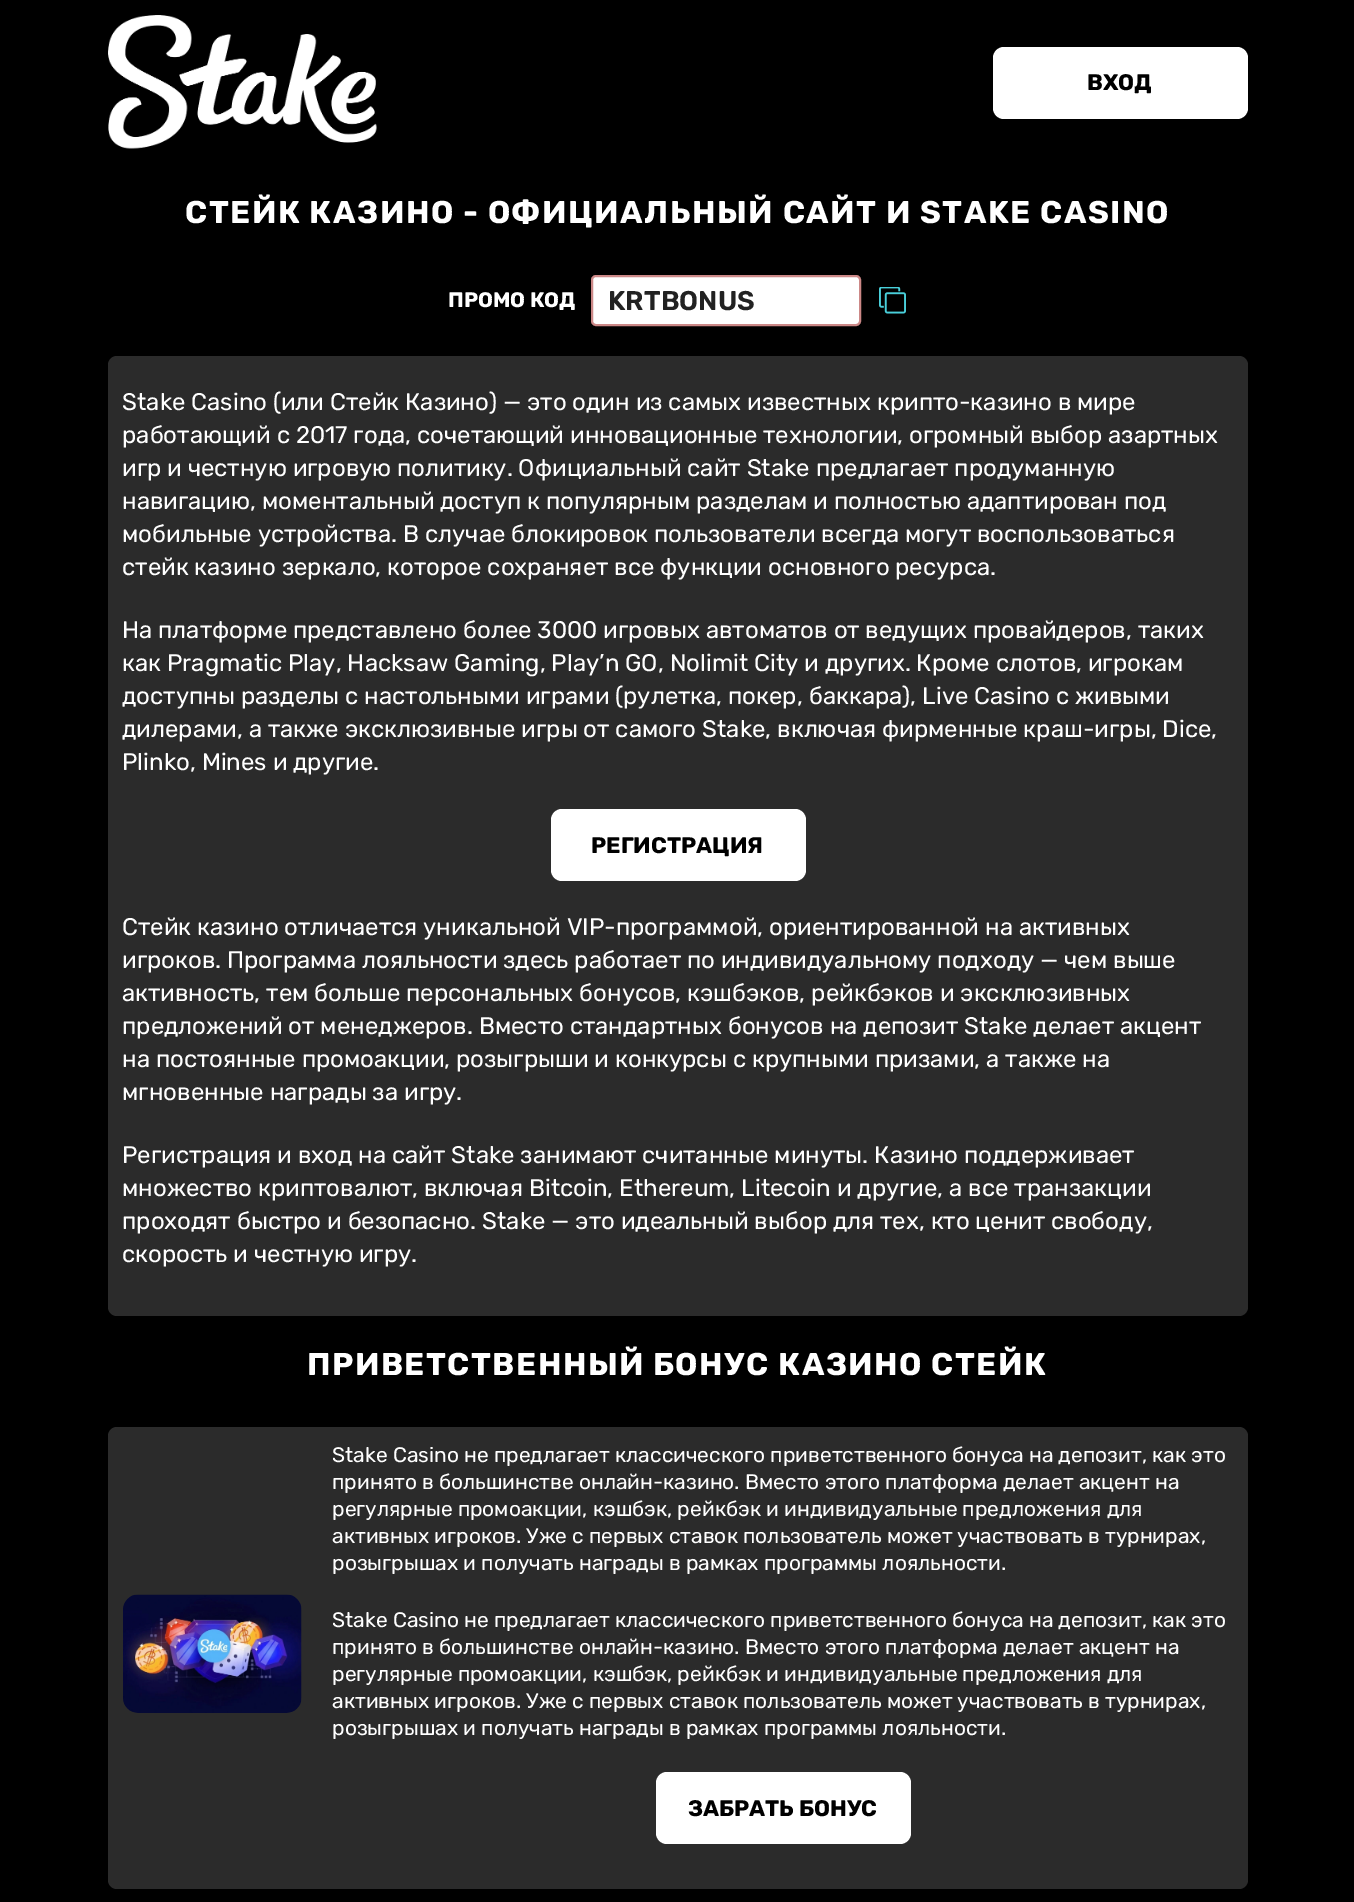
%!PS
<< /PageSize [1354 1902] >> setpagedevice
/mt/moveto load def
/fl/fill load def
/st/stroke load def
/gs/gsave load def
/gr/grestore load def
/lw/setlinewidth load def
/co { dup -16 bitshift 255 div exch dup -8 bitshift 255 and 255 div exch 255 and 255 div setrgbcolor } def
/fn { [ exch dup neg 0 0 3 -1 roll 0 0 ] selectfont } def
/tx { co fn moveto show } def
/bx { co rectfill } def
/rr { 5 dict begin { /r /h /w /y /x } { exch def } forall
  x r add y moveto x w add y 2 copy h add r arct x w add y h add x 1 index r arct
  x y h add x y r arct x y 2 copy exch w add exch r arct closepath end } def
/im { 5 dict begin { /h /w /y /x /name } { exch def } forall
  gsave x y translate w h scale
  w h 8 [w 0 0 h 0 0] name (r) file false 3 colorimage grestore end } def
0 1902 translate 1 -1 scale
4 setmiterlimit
0 0 1354 1902 16#000000 bx
(media/1.raw) 108 15 269 134 im
16#FFFFFF co
993 47 255 72 11 rr fl
592 276 268 49 4 rr gs fl gr
16#CC8887 co
2 lw
st
(media/2.raw) 879 287 27 27 im
16#2B2B2B co
108 356 1140 960 9 rr fl
16#FFFFFF co
551 809 255 72 11 rr fl
16#2B2B2B co
108 1427 1140 462 9 rr fl
(media/3.raw) 123 1594 179 119 im
16#FFFFFF co
656 1772 255 72 11 rr fl
(ВХОД) 1087 90 /Rubik-Bold 22.5 16#000000 tx
/Rubik-Bold 31.5 fn
16#FFFFFF co
185 223 mt 1.5 0 (СТЕЙК КАЗИНО - ОФИЦИАЛЬНЫЙ САЙТ И STAKE CASINO) ashow
(ПРОМО КОД) 448 307 /Rubik-Bold 21 16#FFFFFF tx
(KRTBONUS) 608 310 /Rubik-SemiBold 27 16#222222 tx
(Stake Casino \(или Стейк Казино\) — это один из самых известных крипто-казино в мире) 122 410 /Rubik-Regular 24 16#FFFFFF tx
(работающий с 2017 года, сочетающий инновационные технологии, огромный выбор азартных) 122 443 /Rubik-Regular 24 16#FFFFFF tx
(игр и честную игровую политику. Официальный сайт Stake предлагает продуманную) 122 476 /Rubik-Regular 24 16#FFFFFF tx
(навигацию, моментальный доступ к популярным разделам и полностью адаптирован под) 122 509 /Rubik-Regular 24 16#FFFFFF tx
(мобильные устройства. В случае блокировок пользователи всегда могут воспользоваться) 122 542 /Rubik-Regular 24 16#FFFFFF tx
(стейк казино зеркало, которое сохраняет все функции основного ресурса.) 122 575 /Rubik-Regular 24 16#FFFFFF tx
(На платформе представлено более 3000 игровых автоматов от ведущих провайдеров, таких) 122 638 /Rubik-Regular 24 16#FFFFFF tx
(как Pragmatic Play, Hacksaw Gaming, Play’n GO, Nolimit City и других. Кроме слотов, игрокам) 122 671 /Rubik-Regular 24 16#FFFFFF tx
(доступны разделы с настольными играми \(рулетка, покер, баккара\), Live Casino с живыми) 122 704 /Rubik-Regular 24 16#FFFFFF tx
(дилерами, а также эксклюзивные игры от самого Stake, включая фирменные краш-игры, Dice,) 122 737 /Rubik-Regular 24 16#FFFFFF tx
(Plinko, Mines и другие.) 122 770 /Rubik-Regular 24 16#FFFFFF tx
(РЕГИСТРАЦИЯ) 591 853 /Rubik-Bold 22.5 16#000000 tx
(Стейк казино отличается уникальной VIP-программой, ориентированной на активных) 122 935 /Rubik-Regular 24 16#FFFFFF tx
(игроков. Программа лояльности здесь работает по индивидуальному подходу — чем выше) 122 968 /Rubik-Regular 24 16#FFFFFF tx
(активность, тем больше персональных бонусов, кэшбэков, рейкбэков и эксклюзивных) 122 1001 /Rubik-Regular 24 16#FFFFFF tx
(предложений от менеджеров. Вместо стандартных бонусов на депозит Stake делает акцент) 122 1034 /Rubik-Regular 24 16#FFFFFF tx
(на постоянные промоакции, розыгрыши и конкурсы с крупными призами, а также на) 122 1067 /Rubik-Regular 24 16#FFFFFF tx
(мгновенные награды за игру.) 122 1100 /Rubik-Regular 24 16#FFFFFF tx
(Регистрация и вход на сайт Stake занимают считанные минуты. Казино поддерживает) 122 1163 /Rubik-Regular 24 16#FFFFFF tx
(множество криптовалют, включая Bitcoin, Ethereum, Litecoin и другие, а все транзакции) 122 1196 /Rubik-Regular 24 16#FFFFFF tx
(проходят быстро и безопасно. Stake — это идеальный выбор для тех, кто ценит свободу,) 122 1229 /Rubik-Regular 24 16#FFFFFF tx
(скорость и честную игру.) 122 1262 /Rubik-Regular 24 16#FFFFFF tx
/Rubik-Bold 31.5 fn
307 1375 mt 1.5 0 (ПРИВЕТСТВЕННЫЙ БОНУС КАЗИНО СТЕЙК) ashow
(Stake Casino не предлагает классического приветственного бонуса на депозит, как это) 332 1462 /Rubik-Regular 21 16#FFFFFF tx
(принято в большинстве онлайн-казино. Вместо этого платформа делает акцент на) 332 1489 /Rubik-Regular 21 16#FFFFFF tx
(регулярные промоакции, кэшбэк, рейкбэк и индивидуальные предложения для) 332 1516 /Rubik-Regular 21 16#FFFFFF tx
(активных игроков. Уже с первых ставок пользователь может участвовать в турнирах,) 332 1543 /Rubik-Regular 21 16#FFFFFF tx
(розыгрышах и получать награды в рамках программы лояльности.) 332 1570 /Rubik-Regular 21 16#FFFFFF tx
(Stake Casino не предлагает классического приветственного бонуса на депозит, как это) 332 1627 /Rubik-Regular 21 16#FFFFFF tx
(принято в большинстве онлайн-казино. Вместо этого платформа делает акцент на) 332 1654 /Rubik-Regular 21 16#FFFFFF tx
(регулярные промоакции, кэшбэк, рейкбэк и индивидуальные предложения для) 332 1681 /Rubik-Regular 21 16#FFFFFF tx
(активных игроков. Уже с первых ставок пользователь может участвовать в турнирах,) 332 1708 /Rubik-Regular 21 16#FFFFFF tx
(розыгрышах и получать награды в рамках программы лояльности.) 332 1735 /Rubik-Regular 21 16#FFFFFF tx
(ЗАБРАТЬ БОНУС) 688 1816 /Rubik-Bold 22.5 16#000000 tx
showpage
